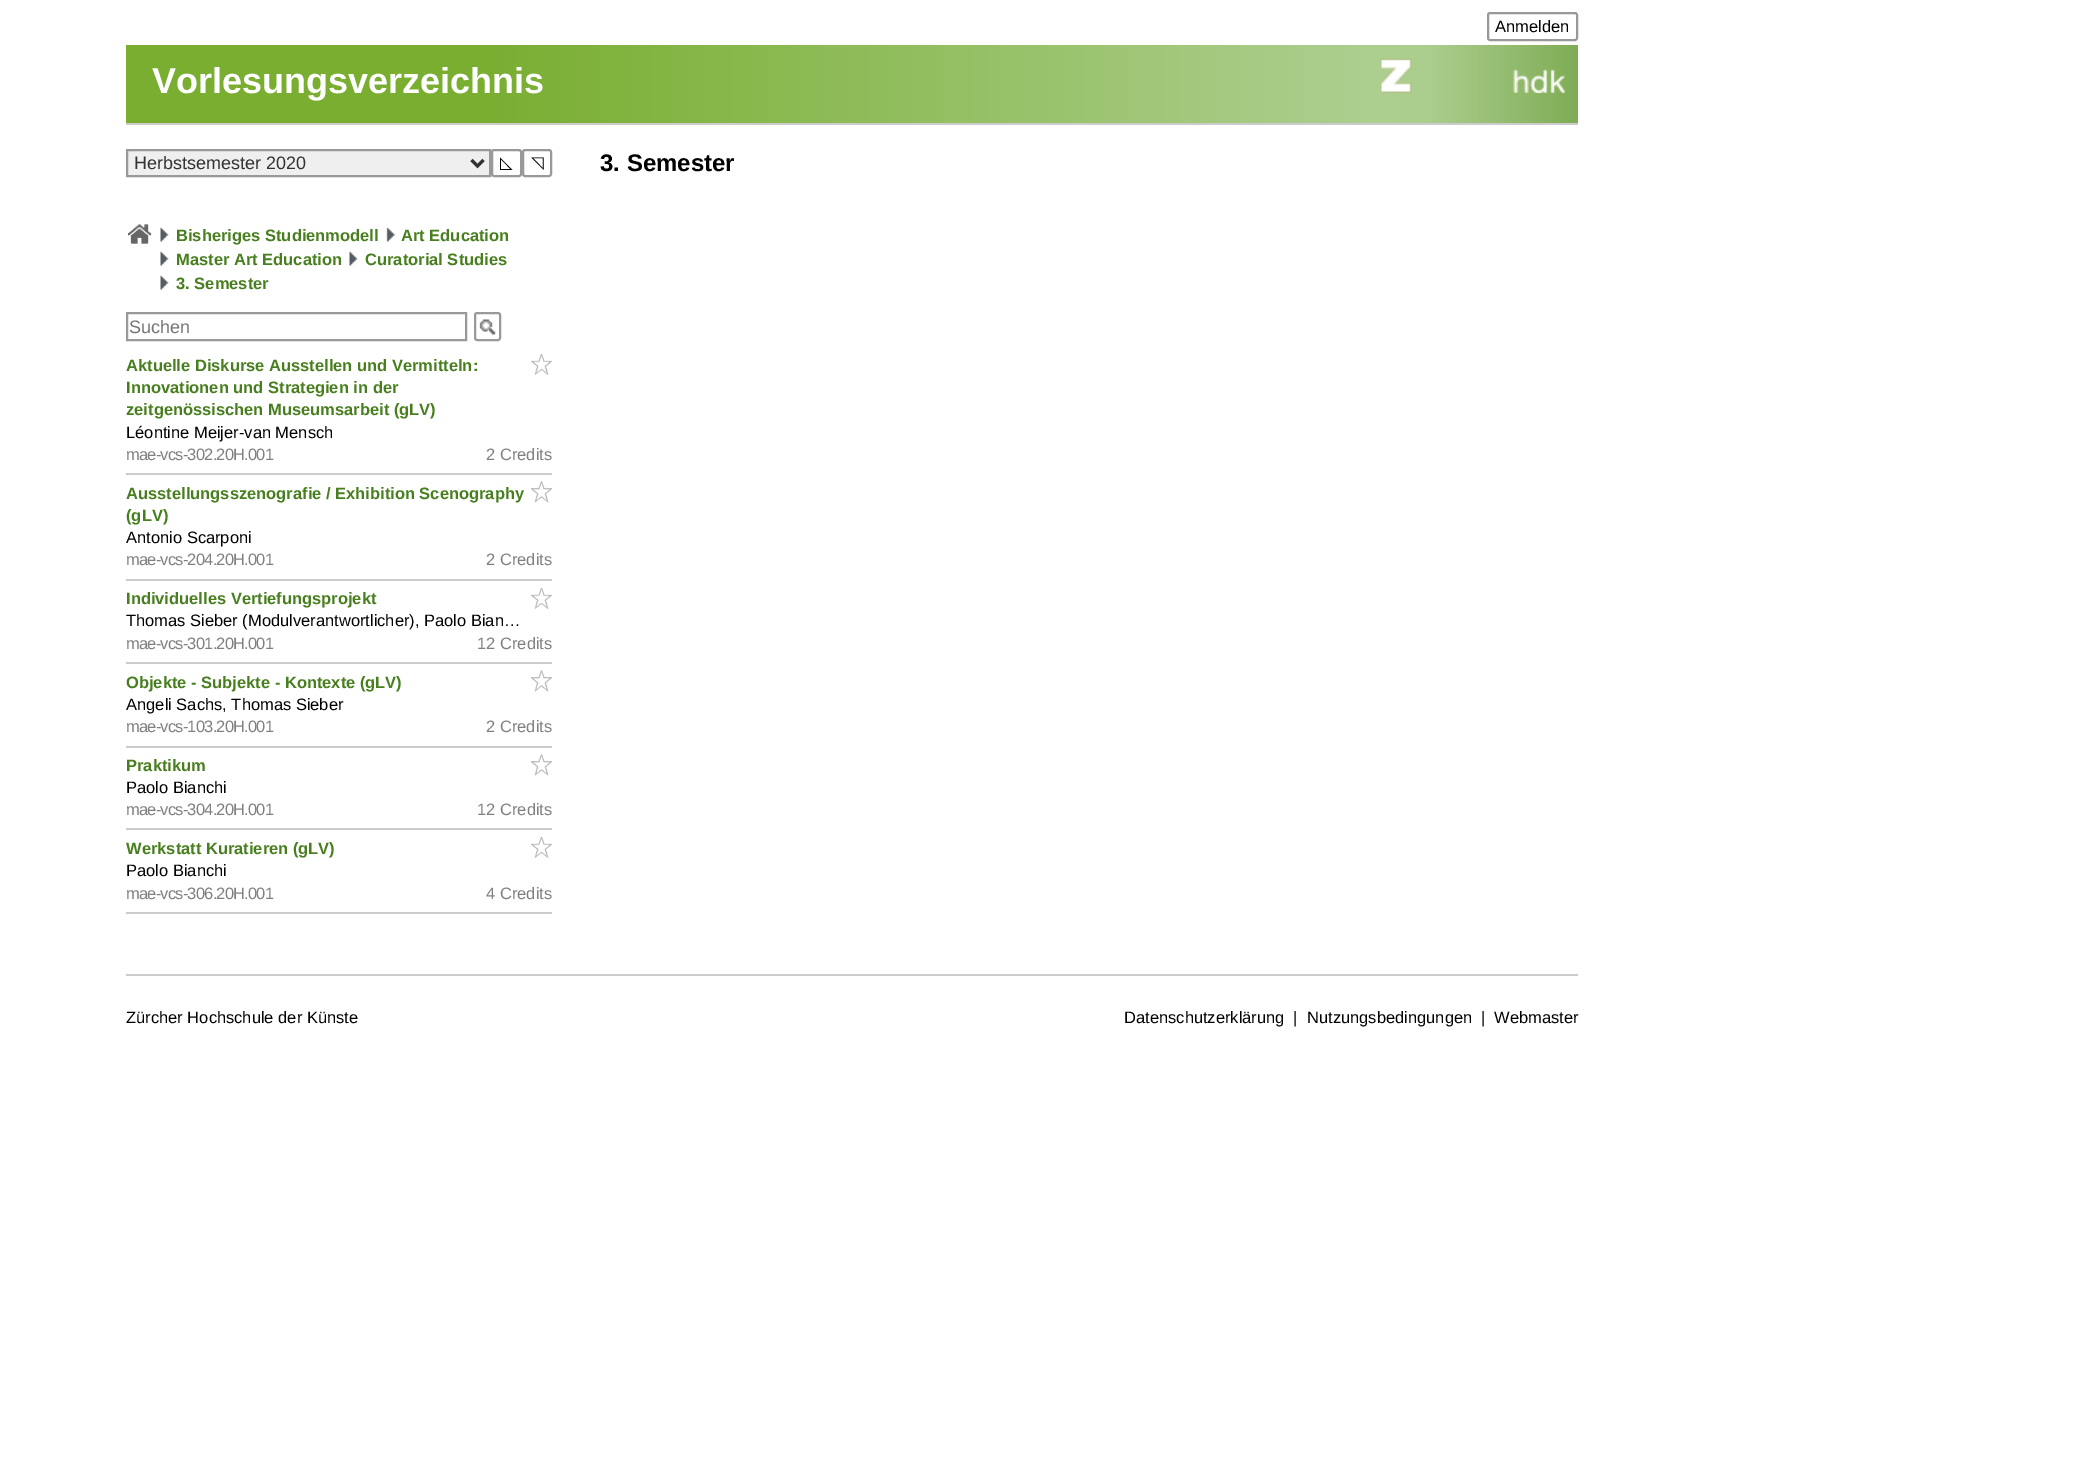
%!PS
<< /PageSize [2078 1477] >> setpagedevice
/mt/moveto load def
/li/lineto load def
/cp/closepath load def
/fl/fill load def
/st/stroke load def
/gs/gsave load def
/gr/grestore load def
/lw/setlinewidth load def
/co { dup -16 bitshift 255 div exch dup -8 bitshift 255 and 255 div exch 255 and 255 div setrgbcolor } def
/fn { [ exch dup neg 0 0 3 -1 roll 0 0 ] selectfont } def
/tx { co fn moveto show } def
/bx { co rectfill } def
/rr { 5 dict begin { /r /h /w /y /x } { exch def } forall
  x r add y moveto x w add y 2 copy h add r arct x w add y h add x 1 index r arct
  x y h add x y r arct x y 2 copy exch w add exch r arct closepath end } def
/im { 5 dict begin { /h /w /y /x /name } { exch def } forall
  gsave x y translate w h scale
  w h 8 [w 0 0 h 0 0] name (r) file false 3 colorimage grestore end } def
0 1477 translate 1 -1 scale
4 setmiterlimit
0 0 2078 1477 16#FFFFFF bx
16#999999 co
2 lw
1488 13 89 27 2 rr st
(media/1.raw) 126 45 1452 78 im
(media/2.raw) 1381 58 184 35 im
126 123 1452 2 16#CCCCCC bx
16#EFEFEF co
127 150 mt 490 150 li 490 176 li 127 176 li cp gs fl gr
16#999999 co
st
16#333333 co
3 lw
471.5 160 mt 477.5 166 li 483.5 160 li st
16#999999 co
2 lw
492 150 29 26 2 rr st
523 150 28 26 2 rr st
(media/3.raw) 128 224 24 20 im
(media/4.raw) 160 227 9 15 im
(media/5.raw) 386 227 9 15 im
(media/4.raw) 160 251 9 15 im
(media/4.raw) 349 251 9 15 im
(media/4.raw) 160 275 9 15 im
127 313 339 27 rectstroke
(media/6.raw) 479 319 17 16 im
475 313 25 27 2 rr st
126 473 426 2 16#CCCCCC bx
(media/7.raw) 531 354 21 21 im
126 579 426 2 16#CCCCCC bx
(media/8.raw) 531 481 21 22 im
126 662 426 2 16#CCCCCC bx
(media/7.raw) 531 588 21 21 im
126 746 426 2 16#CCCCCC bx
(media/8.raw) 531 670 21 22 im
126 828 426 2 16#CCCCCC bx
(media/8.raw) 531 754 21 22 im
126 912 426 2 16#CCCCCC bx
(media/7.raw) 531 837 21 21 im
126 974 1452 2 16#CCCCCC bx
(Anmelden) 1495 32 /LiberationSans-Regular 16.5 16#000000 tx
(Vorlesungsverzeichnis) 152 93 /LiberationSans-Bold 36 16#FFFFFF tx
(Herbstsemester 2020) 134 169 /LiberationSans-Regular 18 16#333333 tx
(◺) 500 168 /DejaVuSans-Regular 16.5 16#000000 tx
(◹) 531 168 /DejaVuSans-Regular 16.5 16#000000 tx
(Bisheriges Studienmodell) 176 241 /LiberationSans-Bold 16.5 16#477E1E tx
(Art Education) 401 241 /LiberationSans-Bold 16.5 16#477E1E tx
(Master Art Education) 176 265 /LiberationSans-Bold 16.5 16#477E1E tx
(Curatorial Studies) 365 265 /LiberationSans-Bold 16.5 16#477E1E tx
(3. Semester) 176 289 /LiberationSans-Bold 16.5 16#477E1E tx
(Suchen) 129 333 /LiberationSans-Regular 18 16#757575 tx
(Aktuelle Diskurse Ausstellen und Vermitteln:) 126 371 /LiberationSans-Bold 16.5 16#477E1E tx
(Innovationen und Strategien in der) 126 393 /LiberationSans-Bold 16.5 16#477E1E tx
(zeitgenössischen Museumsarbeit \(gLV\)) 126 415 /LiberationSans-Bold 16.5 16#477E1E tx
(Léontine Meijer-van Mensch) 126 438 /LiberationSans-Regular 16.5 16#000000 tx
16#808080 co
126 460 mt -.8 0 (mae-vcs-302.20H.001) ashow
(2 Credits) 486 460 /LiberationSans-Regular 16.5 16#808080 tx
(Ausstellungsszenografie / Exhibition Scenography) 126 499 /LiberationSans-Bold 16.5 16#477E1E tx
(\(gLV\)) 126 521 /LiberationSans-Bold 16.5 16#477E1E tx
(Antonio Scarponi) 126 543 /LiberationSans-Regular 16.5 16#000000 tx
16#808080 co
126 565 mt -.8 0 (mae-vcs-204.20H.001) ashow
(2 Credits) 486 565 /LiberationSans-Regular 16.5 16#808080 tx
(Individuelles Vertiefungsprojekt) 126 604 /LiberationSans-Bold 16.5 16#477E1E tx
(Thomas Sieber \(Modulverantwortlicher\), Paolo Bian…) 126 626 /LiberationSans-Regular 16.5 16#000000 tx
16#808080 co
126 649 mt -.8 0 (mae-vcs-301.20H.001) ashow
(12 Credits) 477 649 /LiberationSans-Regular 16.5 16#808080 tx
(Objekte - Subjekte - Kontexte \(gLV\)) 126 688 /LiberationSans-Bold 16.5 16#477E1E tx
(Angeli Sachs, Thomas Sieber) 126 710 /LiberationSans-Regular 16.5 16#000000 tx
16#808080 co
126 732 mt -.8 0 (mae-vcs-103.20H.001) ashow
(2 Credits) 486 732 /LiberationSans-Regular 16.5 16#808080 tx
(Praktikum) 126 771 /LiberationSans-Bold 16.5 16#477E1E tx
(Paolo Bianchi) 126 793 /LiberationSans-Regular 16.5 16#000000 tx
16#808080 co
126 815 mt -.8 0 (mae-vcs-304.20H.001) ashow
(12 Credits) 477 815 /LiberationSans-Regular 16.5 16#808080 tx
(Werkstatt Kuratieren \(gLV\)) 126 854 /LiberationSans-Bold 16.5 16#477E1E tx
(Paolo Bianchi) 126 876 /LiberationSans-Regular 16.5 16#000000 tx
16#808080 co
126 899 mt -.8 0 (mae-vcs-306.20H.001) ashow
(4 Credits) 486 899 /LiberationSans-Regular 16.5 16#808080 tx
(3. Semester) 600 171 /LiberationSans-Bold 24 16#000000 tx
(Zürcher Hochschule der Künste) 126 1023 /LiberationSans-Regular 16.5 16#000000 tx
(Datenschutzerklärung) 1124 1023 /LiberationSans-Regular 16.5 16#000000 tx
(|) 1293 1023 /LiberationSans-Regular 16.5 16#000000 tx
(Nutzungsbedingungen) 1307 1023 /LiberationSans-Regular 16.5 16#000000 tx
(|) 1481 1023 /LiberationSans-Regular 16.5 16#000000 tx
(Webmaster) 1494 1023 /LiberationSans-Regular 16.5 16#000000 tx
showpage
